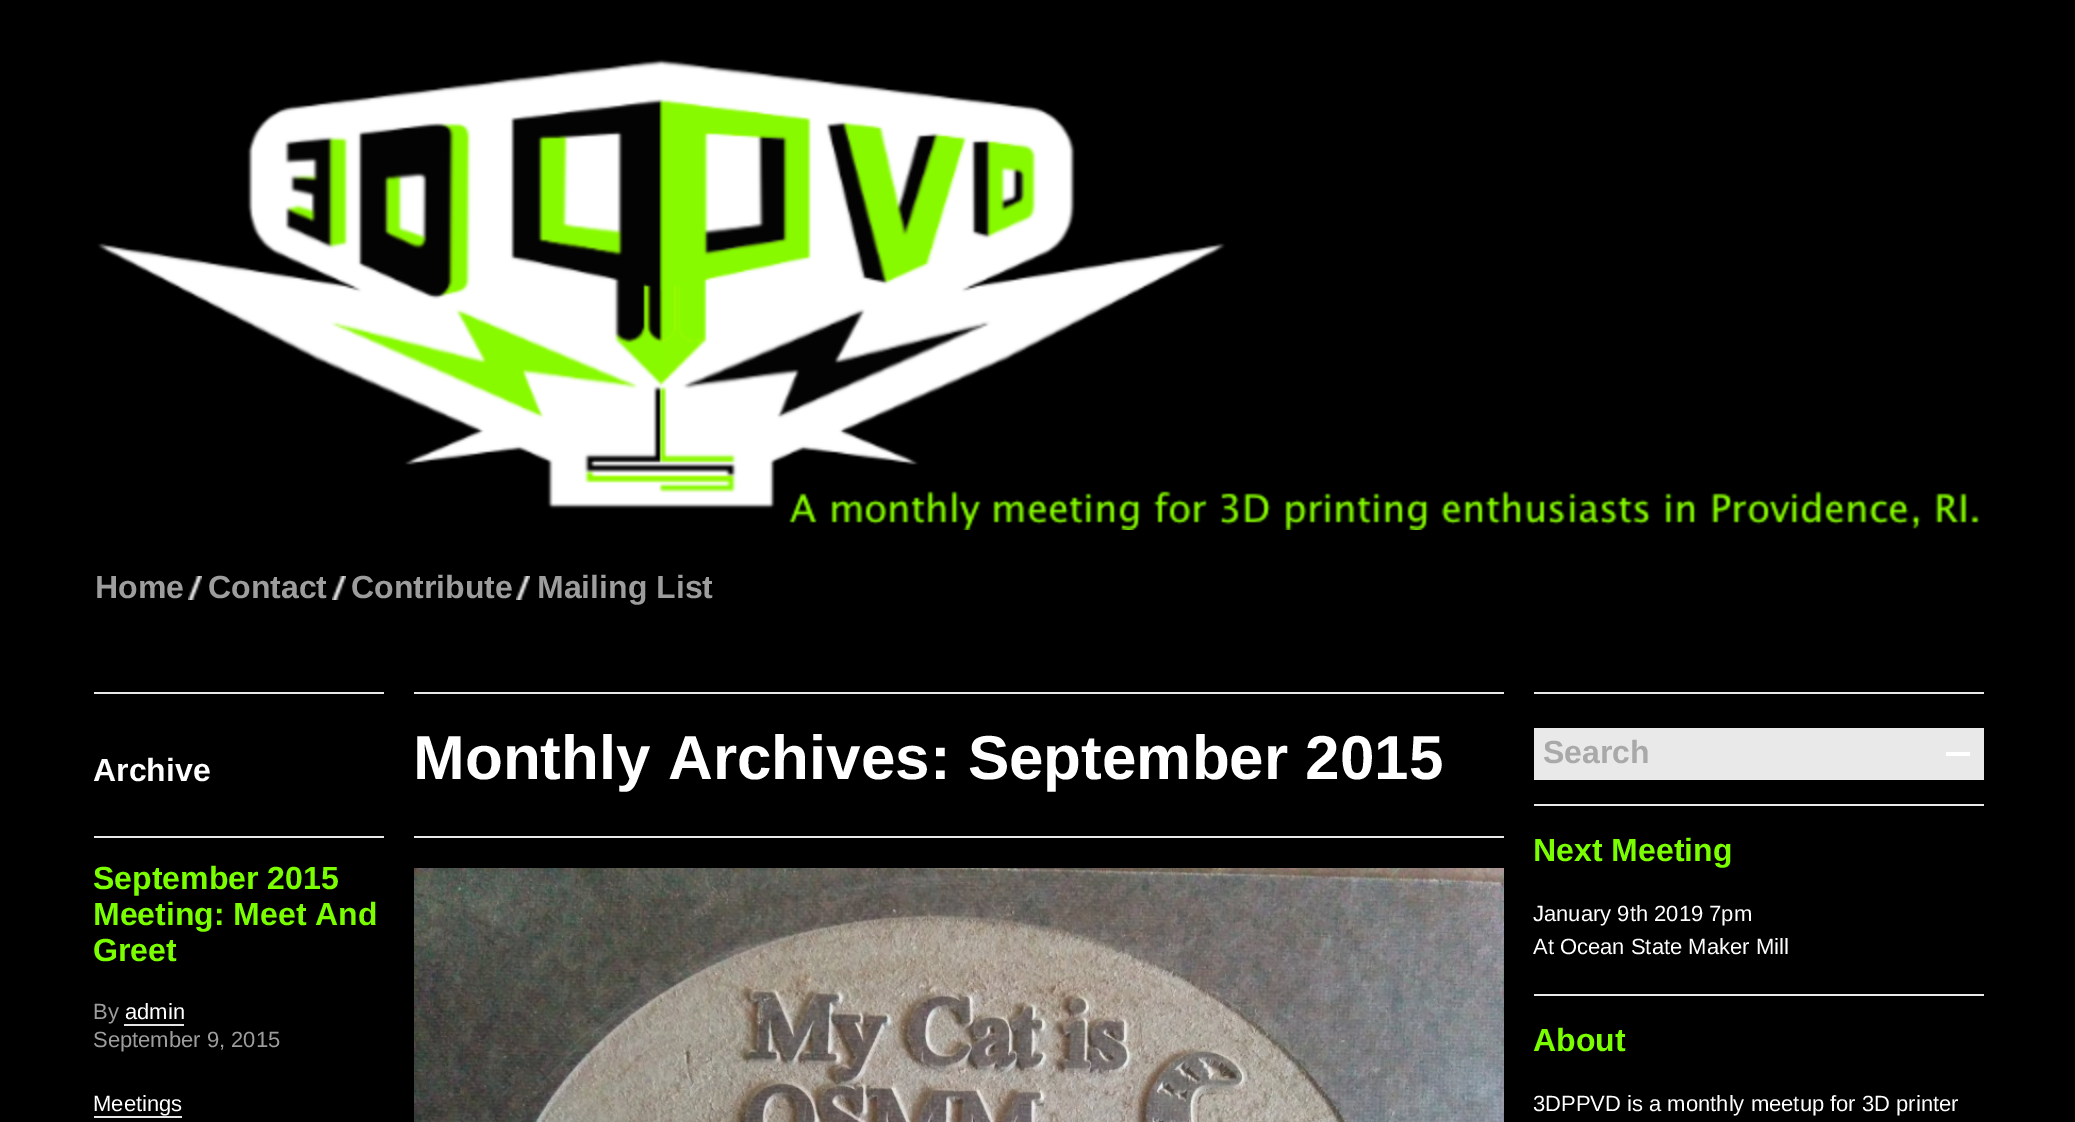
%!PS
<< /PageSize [2075 1122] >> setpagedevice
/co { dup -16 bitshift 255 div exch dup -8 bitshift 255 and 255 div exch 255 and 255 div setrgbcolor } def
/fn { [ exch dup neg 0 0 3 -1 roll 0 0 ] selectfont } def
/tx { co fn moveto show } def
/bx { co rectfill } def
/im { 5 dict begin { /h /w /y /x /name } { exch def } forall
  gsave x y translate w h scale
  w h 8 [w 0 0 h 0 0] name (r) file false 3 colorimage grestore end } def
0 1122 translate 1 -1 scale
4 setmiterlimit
0 0 2075 1122 16#000000 bx
(media/1.raw) 97 59 1882 471 im
(media/2.raw) 188 576 14 24 im
(media/2.raw) 332 576 14 24 im
(media/2.raw) 516 576 14 24 im
94 692 290 2 16#E9E9E9 bx
414 692 1090 2 16#E9E9E9 bx
94 836 290 2 16#E9E9E9 bx
124 1024 60 2 16#E5E5E5 bx
94 1116 88 2 16#E5E5E5 bx
414 836 1090 2 16#E9E9E9 bx
(media/3.raw) 414 868 1090 254 im
1534 692 450 2 16#E9E9E9 bx
1534 728 450 52 16#E9E9E9 bx
1946 752 24 4 16#FFFFFF bx
1534 804 450 2 16#E9E9E9 bx
1534 994 450 2 16#E9E9E9 bx
(Home) 95 598 /LiberationSans-Bold 32 16#9D9D9D tx
(Contact) 208 598 /LiberationSans-Bold 32 16#9D9D9D tx
(Contribute) 351 598 /LiberationSans-Bold 32 16#9D9D9D tx
(Mailing List) 537 598 /LiberationSans-Bold 32 16#9D9D9D tx
(Archive) 93 781 /LiberationSans-Bold 32 16#FFFFFF tx
(Monthly Archives: September 2015) 413 779 /LiberationSans-Bold 62 16#FFFFFF tx
(September 2015) 93 889 /LiberationSans-Bold 32 16#7BFF00 tx
(Meeting: Meet And) 93 925 /LiberationSans-Bold 32 16#7BFF00 tx
(Greet) 93 961 /LiberationSans-Bold 32 16#7BFF00 tx
(By) 93 1019 /LiberationSans-Regular 22 16#9D9D9D tx
(admin) 125 1019 /LiberationSans-Regular 22 16#FFFFFF tx
(September 9, 2015) 93 1047 /LiberationSans-Regular 22 16#9D9D9D tx
(Meetings) 93 1111 /LiberationSans-Regular 22 16#FFFFFF tx
(Search) 1543 763 /LiberationSans-Bold 32 16#A9A9A9 tx
(Next Meeting) 1533 861 /LiberationSans-Bold 32 16#7BFF00 tx
(January 9th 2019 7pm) 1533 921 /LiberationSans-Regular 22 16#FFFFFF tx
(At Ocean State Maker Mill) 1533 954 /LiberationSans-Regular 22 16#FFFFFF tx
(About) 1533 1051 /LiberationSans-Bold 32 16#7BFF00 tx
(3DPPVD is a monthly meetup for 3D printer) 1533 1111 /LiberationSans-Regular 22 16#FFFFFF tx
showpage
